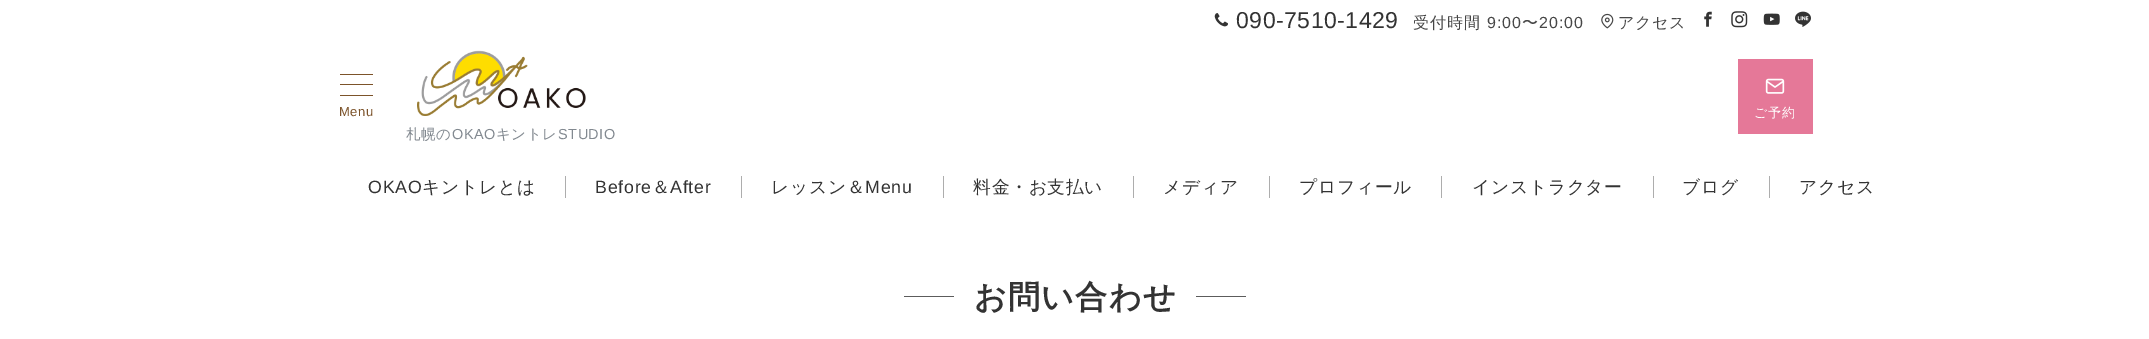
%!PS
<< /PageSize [2149 339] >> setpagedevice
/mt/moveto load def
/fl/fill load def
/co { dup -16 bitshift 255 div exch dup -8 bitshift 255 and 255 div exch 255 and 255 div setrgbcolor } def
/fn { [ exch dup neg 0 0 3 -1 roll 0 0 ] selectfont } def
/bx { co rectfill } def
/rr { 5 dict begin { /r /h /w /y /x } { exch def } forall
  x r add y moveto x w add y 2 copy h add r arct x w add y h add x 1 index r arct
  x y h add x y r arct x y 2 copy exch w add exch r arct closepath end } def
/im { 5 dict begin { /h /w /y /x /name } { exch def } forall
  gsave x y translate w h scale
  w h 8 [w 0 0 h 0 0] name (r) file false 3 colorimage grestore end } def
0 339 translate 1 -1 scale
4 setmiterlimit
0 0 2149 339 16#FFFFFF bx
(media/1.raw) 1214 13 14 14 im
(media/2.raw) 1601 13 13 16 im
(media/3.raw) 1704 11 8 16 im
(media/4.raw) 1731 11 17 17 im
(media/5.raw) 1763 13 17 12 im
(media/6.raw) 1795 11 16 16 im
16#7C532A co
340 74 33 1 .5 rr fl
340 84 33 1 .5 rr fl
340 95 33 1 .5 rr fl
1738 59 75 75 16#E57898 bx
(media/7.raw) 1765 78 20 16 im
(media/8.raw) 417 50 169 66 im
565 176 1 22 16#ADADAD bx
741 176 1 22 16#ADADAD bx
943 176 1 22 16#ADADAD bx
1133 176 1 22 16#ADADAD bx
1269 176 1 22 16#ADADAD bx
1441 176 1 22 16#ADADAD bx
1653 176 1 22 16#ADADAD bx
1769 176 1 22 16#ADADAD bx
904 296 50 1 16#5C5C5C bx
1196 296 50 1 16#5C5C5C bx
/LiberationSans-Regular 23 fn
16#333333 co
1236 28 mt .5 0 (090-7510-1429) ashow
/WenQuanYiZenHei-Medium 16 fn
16#474747 co
1413 28 mt 1 0 (受付時間) ashow
/LiberationSans-Regular 16 fn
1487 28 mt 1 0 (9:00) ashow
/WenQuanYiZenHei-Medium 16 fn
1522 28 mt 1 0 (〜) ashow
/LiberationSans-Regular 16 fn
1539 28 mt 1 0 (20:00) ashow
/WenQuanYiZenHei-Medium 16 fn
1618 28 mt .5 0 (アクセス) ashow
/LiberationSans-Regular 13 fn
16#7C532A co
339 116 mt .5 0 (Menu) ashow
/WenQuanYiZenHei-Medium 13 fn
16#FFFFFF co
1754 117 mt 1 0 (ご予約) ashow
/WenQuanYiZenHei-Medium 14.5 fn
16#828990 co
406 139 mt .5 0 (札幌の) ashow
/LiberationSans-Regular 14.5 fn
452 139 mt .5 0 (OKAO) ashow
/WenQuanYiZenHei-Medium 14.5 fn
496 139 mt .5 0 (キントレ) ashow
/LiberationSans-Regular 14.5 fn
558 139 mt .5 0 (STUDIO) ashow
/LiberationSans-Regular 17.75 fn
16#333333 co
368 193 mt .75 0 (OKAO) ashow
/WenQuanYiZenHei-Medium 17.75 fn
422 193 mt .75 0 (キントレとは) ashow
/LiberationSans-Regular 17.75 fn
595 193 mt .75 0 (Before) ashow
/WenQuanYiZenHei-Medium 17.75 fn
652 193 mt .75 0 (＆) ashow
/LiberationSans-Regular 17.75 fn
670 193 mt .75 0 (After) ashow
/WenQuanYiZenHei-Medium 17.75 fn
771 193 mt .75 0 (レッスン＆) ashow
/LiberationSans-Regular 17.75 fn
865 193 mt .75 0 (Menu) ashow
/WenQuanYiZenHei-Medium 17.75 fn
973 193 mt .75 0 (料金・お支払い) ashow
1163 193 mt .75 0 (メディア) ashow
1299 193 mt .75 0 (プロフィール) ashow
1472 193 mt .75 0 (インストラクター) ashow
1682 193 mt .75 0 (ブログ) ashow
1799 193 mt .75 0 (アクセス) ashow
/WenQuanYiZenHei-Bold 32 fn
974 308 mt 1.25 0 (お問い合わせ) ashow
showpage
